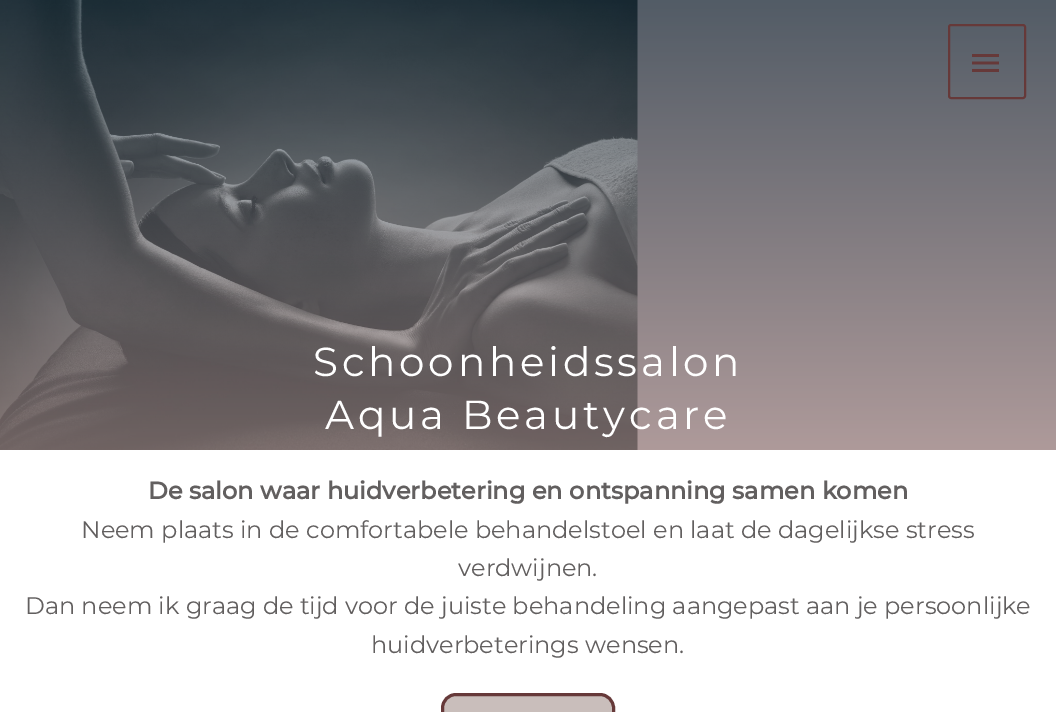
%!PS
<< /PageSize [1056 712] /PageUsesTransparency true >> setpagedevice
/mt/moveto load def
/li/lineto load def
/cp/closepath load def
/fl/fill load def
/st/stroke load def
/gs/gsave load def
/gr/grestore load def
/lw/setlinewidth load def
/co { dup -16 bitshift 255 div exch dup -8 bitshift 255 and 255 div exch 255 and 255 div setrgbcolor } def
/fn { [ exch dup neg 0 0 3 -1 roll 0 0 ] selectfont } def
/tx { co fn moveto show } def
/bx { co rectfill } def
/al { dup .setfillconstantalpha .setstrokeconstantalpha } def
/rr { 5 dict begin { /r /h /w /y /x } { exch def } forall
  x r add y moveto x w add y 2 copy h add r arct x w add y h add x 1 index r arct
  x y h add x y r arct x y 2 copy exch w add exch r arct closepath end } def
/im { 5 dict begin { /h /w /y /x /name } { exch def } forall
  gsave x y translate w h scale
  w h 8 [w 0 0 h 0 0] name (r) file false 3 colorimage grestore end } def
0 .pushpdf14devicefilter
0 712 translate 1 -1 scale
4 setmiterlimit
0 0 1056 712 16#FFFFFF bx
637 0 419 450 16#AE9A9A bx
(media/2.raw) 0 0 638 450 im
0.6 al
gs 0 0 mt 1056 0 li 1056 450 li 0 450 li cp clip newpath
<< /ShadingType 2 /ColorSpace /DeviceRGB /Coords [528 0 528 450] /Extend [true true] /Function << /FunctionType 2 /Domain [0 1] /C0 [.082 .196 .263] /C1 [.682 .604 .604] /N 1 >> >> shfill gr
1 al
16#663939 co
2 lw
949 25 76 73 2 rr st
(media/1.raw) 972 54 27 18 im
16#C9BEBB co
442.5 694.5 171 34 13.5 rr gs fl gr
16#663939 co
3 lw
st
/Montserrat-Regular 40.5 fn
16#FFFFFF co
313 376 mt 3.75 0 (Schoonheidssalon) ashow
325 429 mt 3.75 0 (Aqua Beautycare) ashow
(De salon waar huidverbetering en ontspanning samen komen) 148 499 /Montserrat-Bold 24 16#625F5F tx
(Neem plaats in de comfortabele behandelstoel en laat de dagelijkse stress) 81 538 /Montserrat-Regular 24 16#625F5F tx
(verdwijnen.) 458 576 /Montserrat-Regular 24 16#625F5F tx
(Dan neem ik graag de tijd voor de juiste behandeling aangepast aan je persoonlijke) 25 614 /Montserrat-Regular 24 16#625F5F tx
(huidverbeterings wensen.) 371 653 /Montserrat-Regular 24 16#625F5F tx
.poppdf14devicefilter showpage
